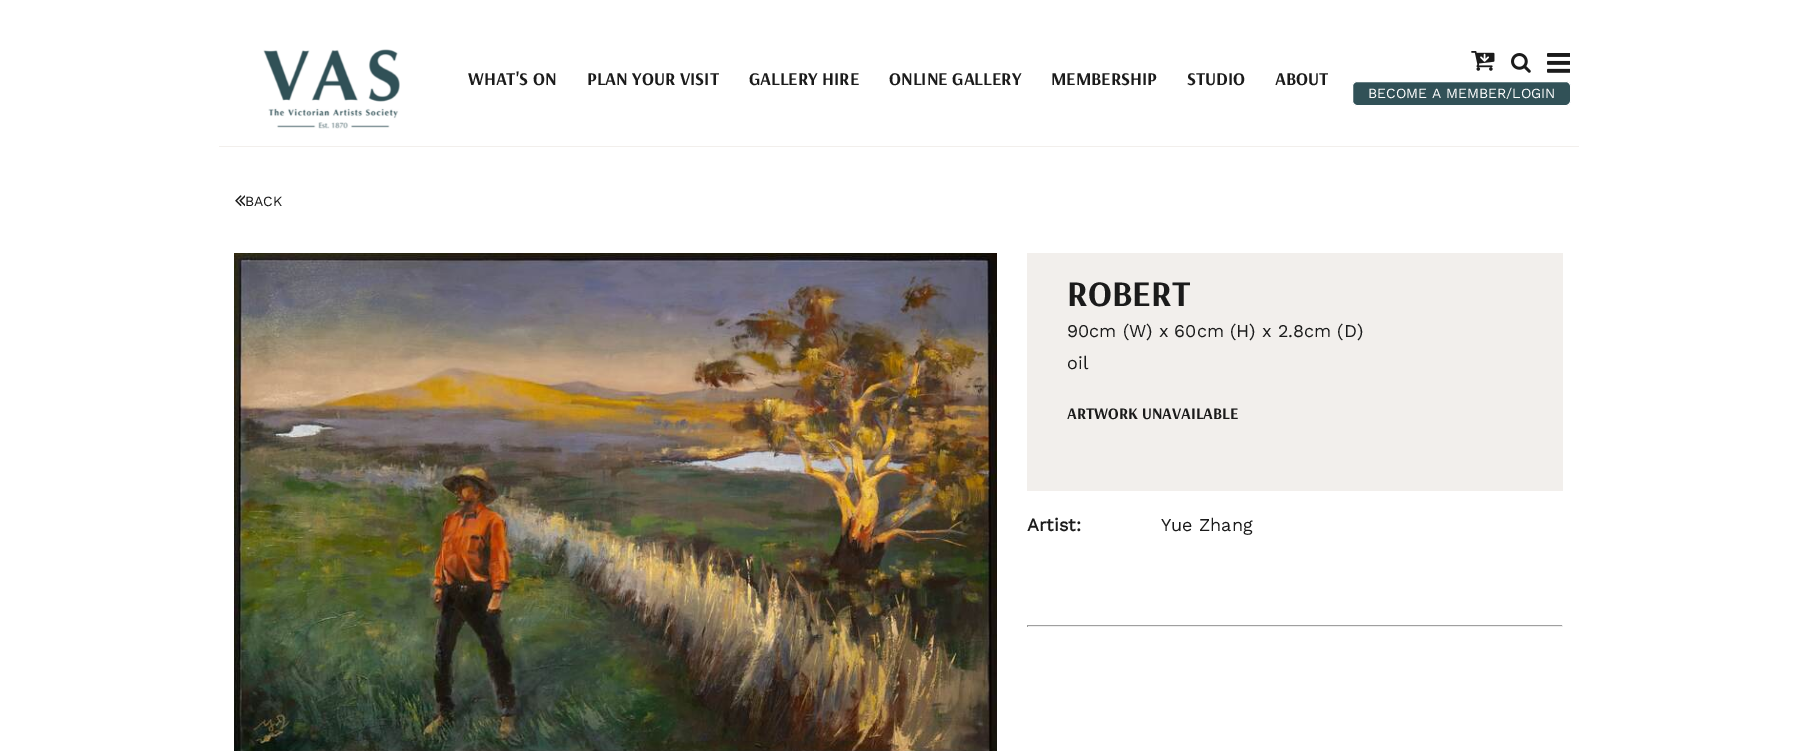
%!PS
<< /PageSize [1797 751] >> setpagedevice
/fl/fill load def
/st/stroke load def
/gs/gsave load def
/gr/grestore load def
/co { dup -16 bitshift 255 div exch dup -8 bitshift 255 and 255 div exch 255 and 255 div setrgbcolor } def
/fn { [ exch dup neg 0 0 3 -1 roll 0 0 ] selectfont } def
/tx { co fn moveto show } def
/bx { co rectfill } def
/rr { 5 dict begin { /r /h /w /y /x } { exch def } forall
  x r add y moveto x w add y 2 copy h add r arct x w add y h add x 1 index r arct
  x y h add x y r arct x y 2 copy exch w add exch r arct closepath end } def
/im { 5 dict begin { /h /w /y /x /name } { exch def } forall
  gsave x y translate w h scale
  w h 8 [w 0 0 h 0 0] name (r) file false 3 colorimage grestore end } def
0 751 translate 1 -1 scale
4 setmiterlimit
0 0 1797 751 16#FFFFFF bx
(media/1.raw) 263 49 137 80 im
(media/2.raw) 1471 51 24 20 im
(media/3.raw) 1511 53 20 20 im
(media/4.raw) 1547 53 23 20 im
16#315157 co
1352.5 81.5 218 24 4.5 rr gs fl gr
16#FFFFFF co
st
219 146 1360 1 16#F2EFEC bx
(media/5.raw) 235 195 10 12 im
(media/6.raw) 234 253 763 498 im
1027 253 536 238 16#F2EFEC bx
1027 625 536 1 16#9F9F9F bx
1562 625 1 2 16#EEEEEE bx
1027 626 536 1 16#EEEEEE bx
1027 625 1 2 16#9F9F9F bx
(WHAT'S ON) 468 85 /Arsenal-Bold 18 16#1B1B1B tx
(PLAN YOUR VISIT) 587 85 /Arsenal-Bold 18 16#1B1B1B tx
(GALLERY HIRE) 749 85 /Arsenal-Bold 18 16#1B1B1B tx
(ONLINE GALLERY) 889 85 /Arsenal-Bold 18 16#1B1B1B tx
(MEMBERSHIP) 1051 85 /Arsenal-Bold 18 16#1B1B1B tx
(STUDIO) 1187 85 /Arsenal-Bold 18 16#1B1B1B tx
(ABOUT) 1275 85 /Arsenal-Bold 18 16#1B1B1B tx
(BECOME A MEMBER/LOGIN) 1368 98 /WorkSans-Regular 14 16#FFFFFF tx
(BACK) 245 206 /WorkSans-Regular 14 16#1B1B1B tx
(ROBERT) 1067 306 /Arsenal-Bold 36 16#1B1B1B tx
(90cm \(W\) x 60cm \(H\) x 2.8cm \(D\)) 1067 337 /WorkSans-Regular 18 16#1B1B1B tx
(oil) 1067 369 /WorkSans-Regular 18 16#1B1B1B tx
(ARTWORK UNAVAILABLE) 1067 419 /Arsenal-Bold 16 16#1B1B1B tx
(Artist:) 1027 531 /WorkSans-Bold 18 16#1B1B1B tx
(Yue Zhang) 1161 531 /WorkSans-Regular 18 16#1B1B1B tx
showpage
